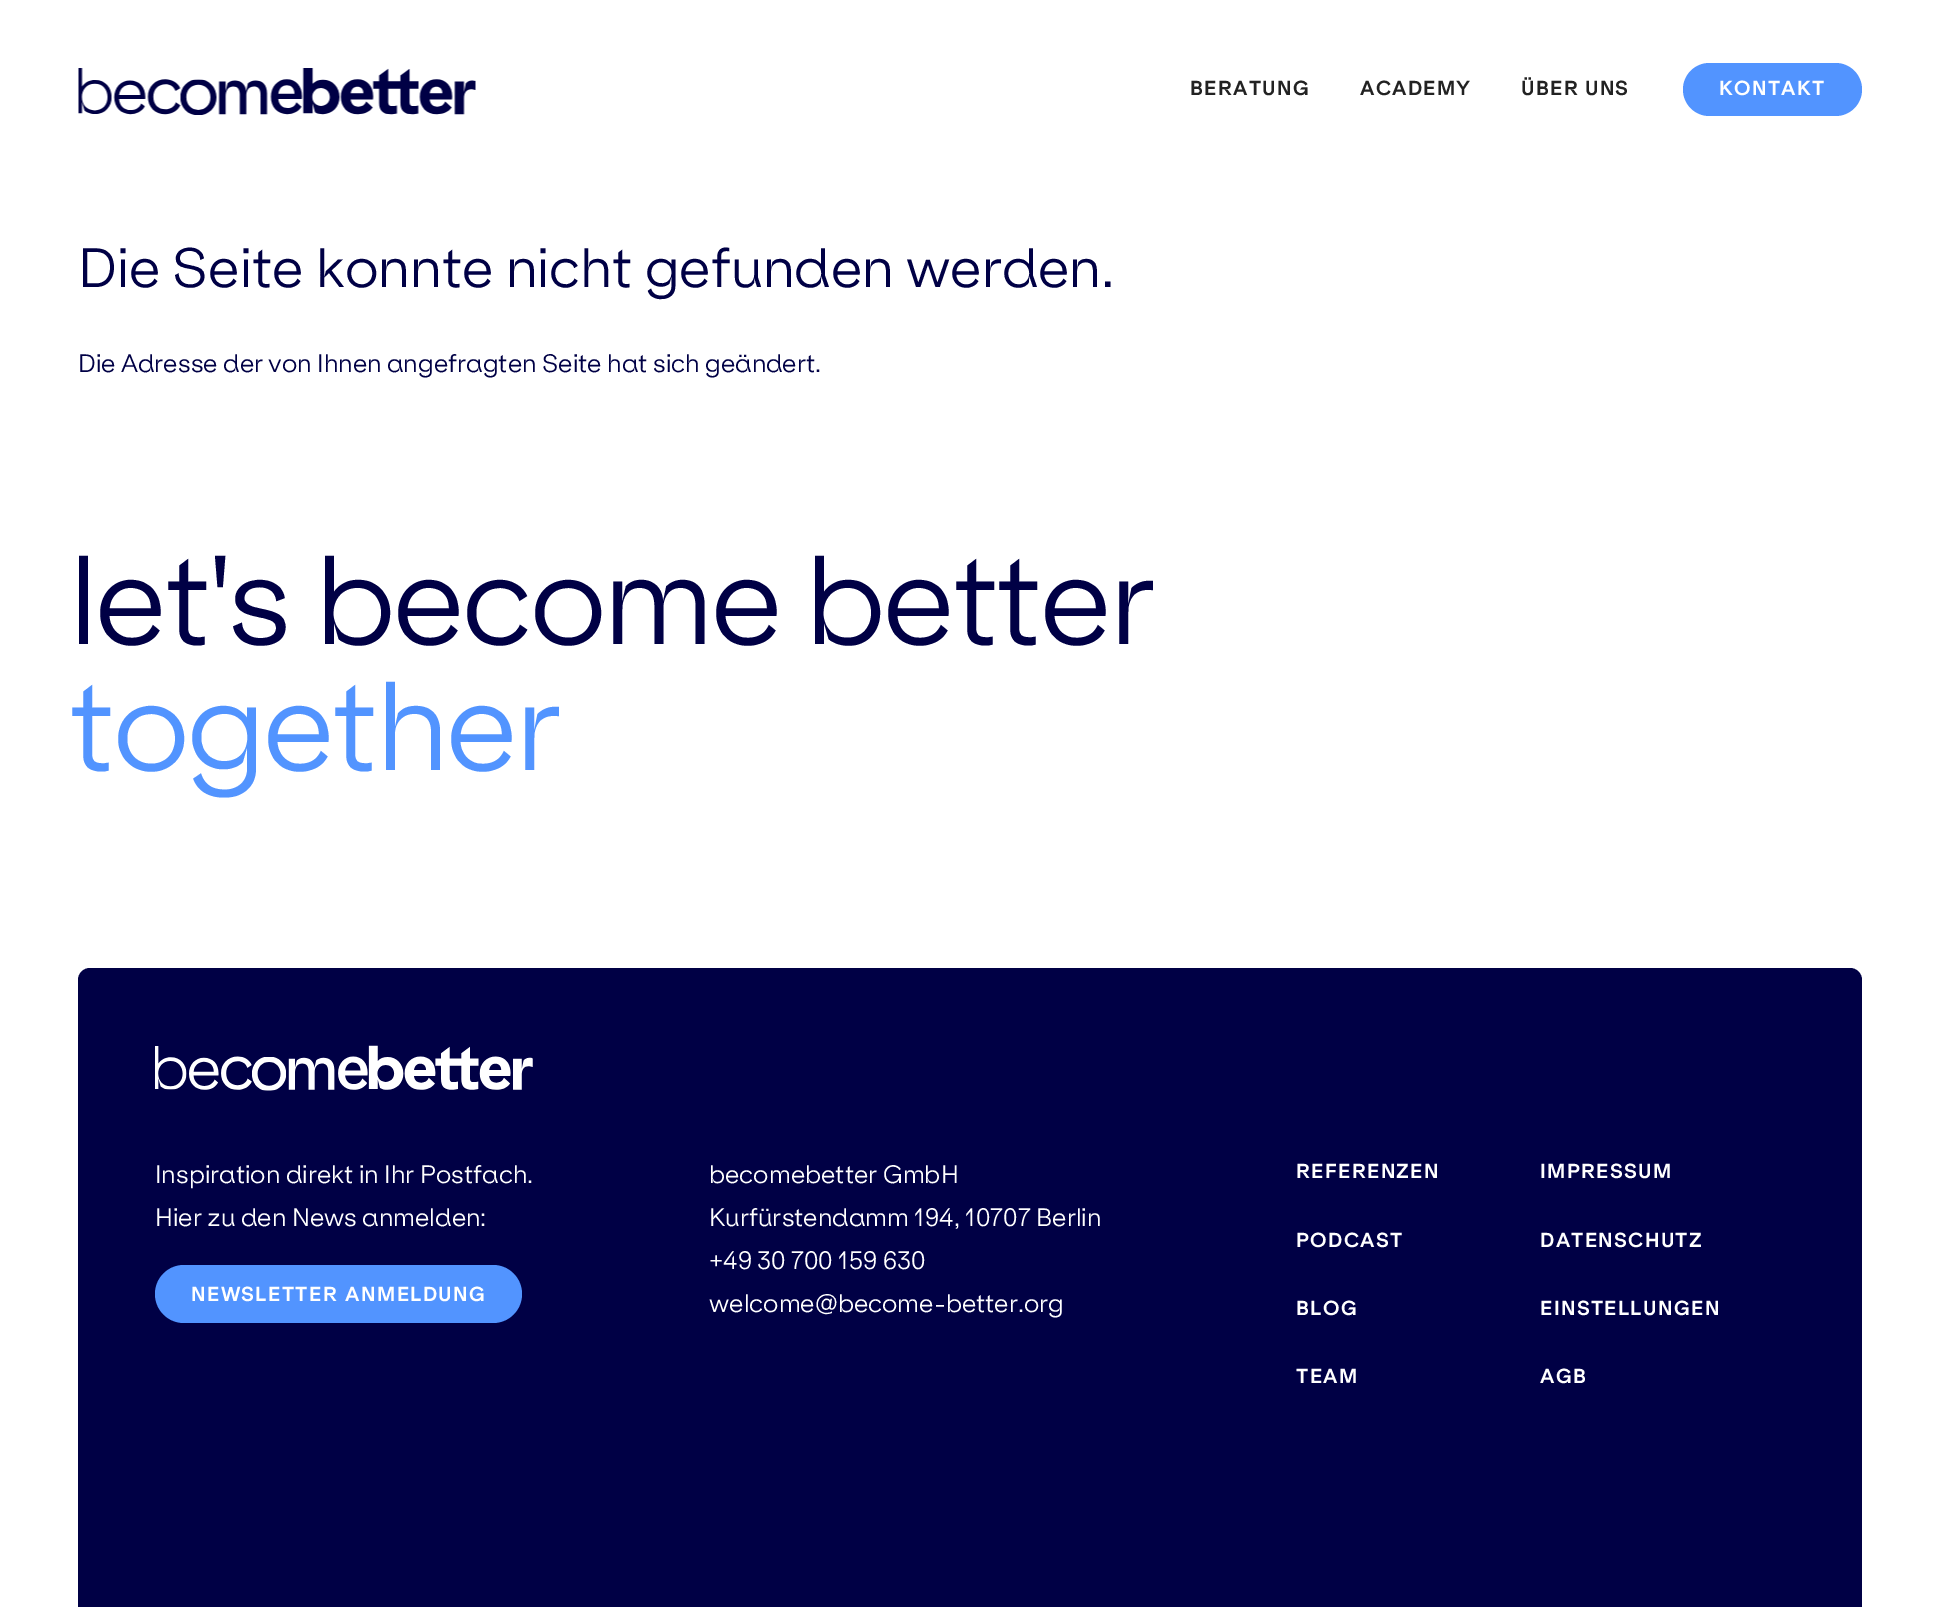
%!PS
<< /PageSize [1939 1607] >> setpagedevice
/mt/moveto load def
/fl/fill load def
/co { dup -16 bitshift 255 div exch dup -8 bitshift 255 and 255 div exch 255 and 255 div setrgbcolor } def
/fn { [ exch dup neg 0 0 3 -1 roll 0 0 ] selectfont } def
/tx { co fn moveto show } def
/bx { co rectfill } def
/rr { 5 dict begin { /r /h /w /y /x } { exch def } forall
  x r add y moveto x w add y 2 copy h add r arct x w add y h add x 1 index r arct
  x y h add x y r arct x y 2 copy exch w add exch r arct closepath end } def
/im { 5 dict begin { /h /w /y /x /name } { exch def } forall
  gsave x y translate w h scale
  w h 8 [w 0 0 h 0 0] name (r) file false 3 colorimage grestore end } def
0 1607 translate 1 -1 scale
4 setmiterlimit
0 0 1939 1607 16#FFFFFF bx
(media/1.raw) 78 68 398 47 im
16#5294FF co
1683 63 179 53 26.5 rr fl
16#000045 co
78 968 1784 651 12 rr fl
(media/2.raw) 155 1045 378 46 im
16#5294FF co
155 1265 367 58 29 rr fl
/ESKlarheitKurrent-Bold 19.25 fn
16#222222 co
1190 95 mt 1.3 0 (BERATUNG) ashow
1360 95 mt 1.3 0 (ACADEMY) ashow
1521 95 mt 1.3 0 (ÜBER UNS) ashow
16#FFFFFF co
1719 95 mt 1.3 0 (KONTAKT) ashow
(Die Seite konnte nicht gefunden werden.) 78 287 /ESKlarheitKurrent-Light 52.75 16#000045 tx
(Die Adresse der von Ihnen angefragten Seite hat sich geändert.) 78 372 /ESKlarheitKurrent-Light 24 16#000045 tx
/ESKlarheitKurrent-Light 120 fn
69 644 mt -2.4 0 (let's become better) ashow
16#5294FF co
69 770 mt -2.4 0 (together) ashow
(Inspiration direkt in Ihr Postfach.) 155 1183 /ESKlarheitKurrent-Light 24 16#FFFFFF tx
(Hier zu den News anmelden:) 155 1226 /ESKlarheitKurrent-Light 24 16#FFFFFF tx
/ESKlarheitKurrent-Bold 19.25 fn
191 1301 mt 2 0 32 1.3 0 (NEWSLETTER ANMELDUNG) awidthshow
(becomebetter GmbH) 709 1183 /ESKlarheitKurrent-Light 24 16#FFFFFF tx
(Kurfürstendamm 194, 10707 Berlin) 709 1226 /ESKlarheitKurrent-Light 24 16#FFFFFF tx
(+49 30 700 159 630) 709 1269 /ESKlarheitKurrent-Light 24 16#FFFFFF tx
(welcome@become-better.org) 709 1312 /ESKlarheitKurrent-Light 24 16#FFFFFF tx
/ESKlarheitKurrent-Bold 19.25 fn
1296 1178 mt 1.3 0 (REFERENZEN) ashow
1296 1247 mt 1.3 0 (PODCAST) ashow
1296 1315 mt 1.3 0 (BLOG) ashow
1296 1383 mt 1.3 0 (TEAM) ashow
1540 1178 mt 1.3 0 (IMPRESSUM) ashow
1540 1247 mt 1.3 0 (DATENSCHUTZ) ashow
1540 1315 mt 1.3 0 (EINSTELLUNGEN) ashow
1540 1383 mt 1.3 0 (AGB) ashow
showpage
